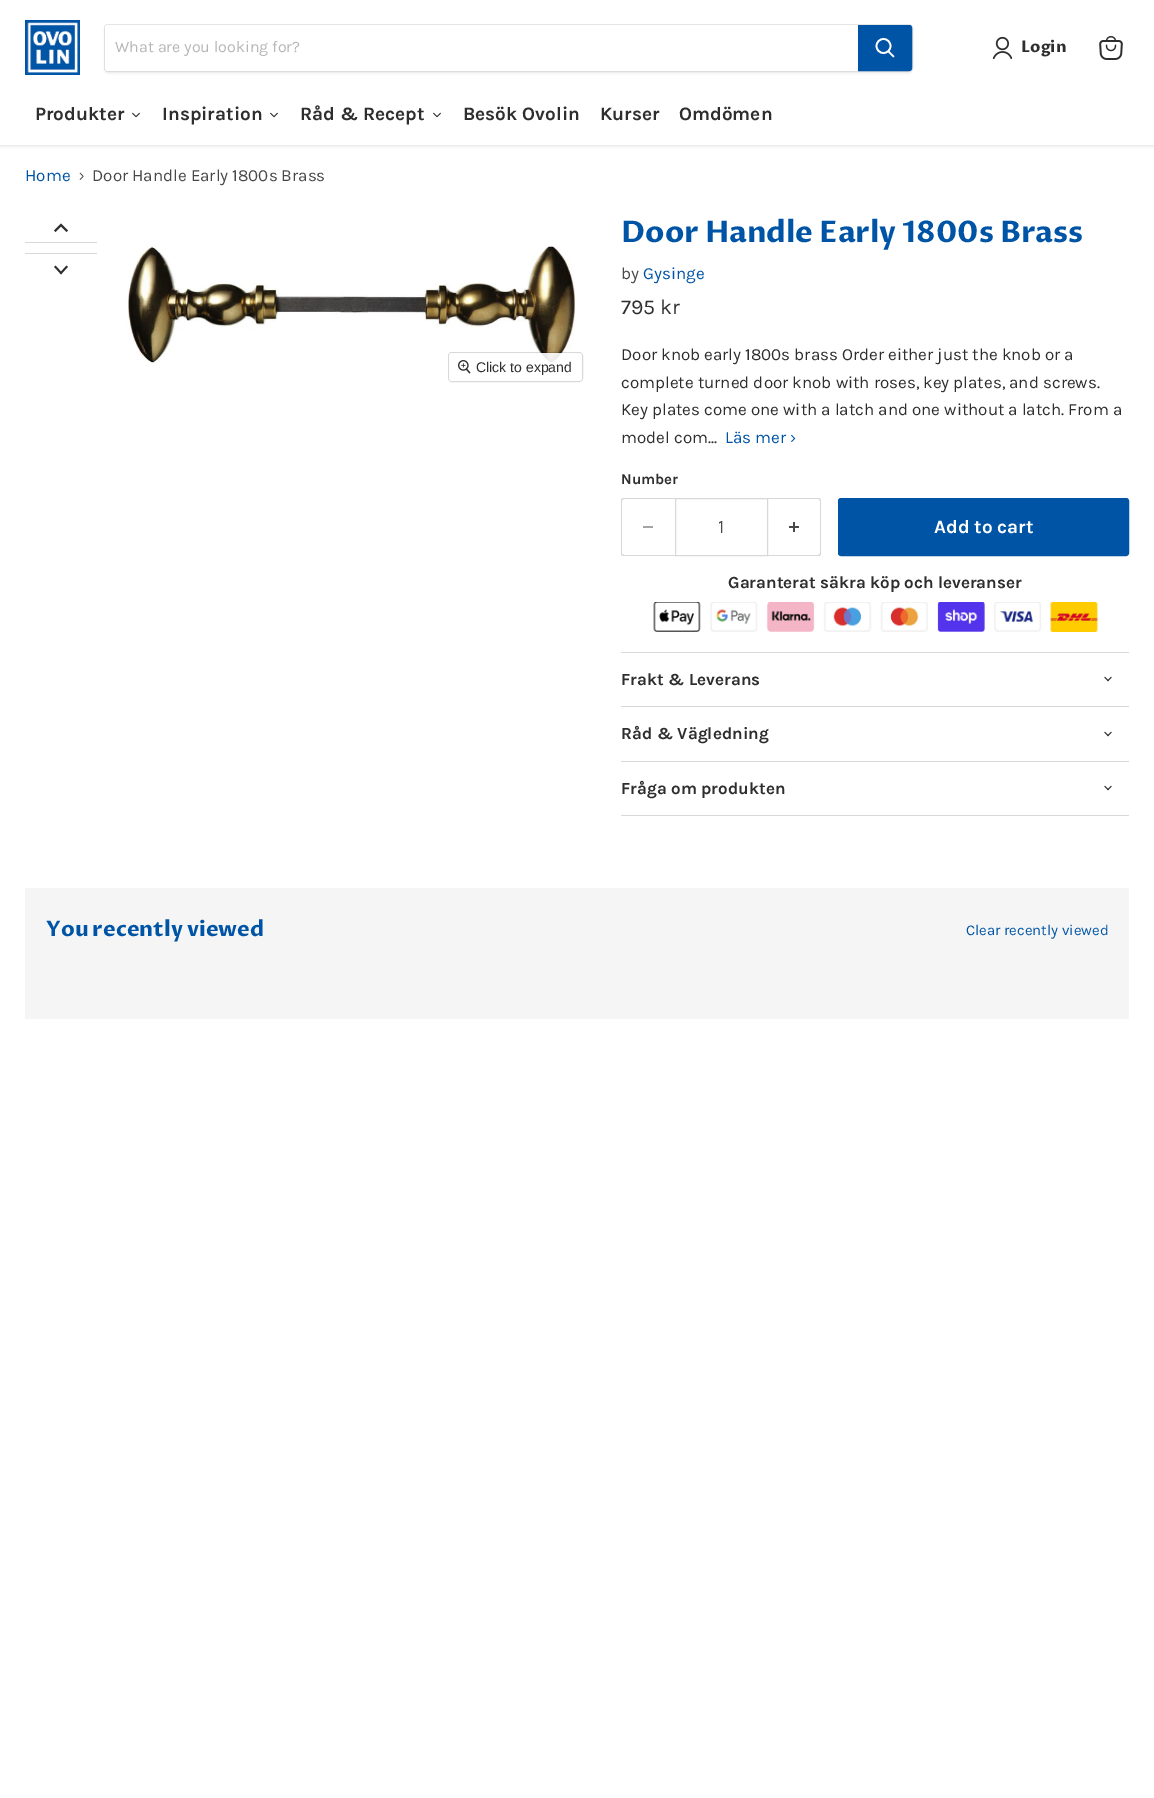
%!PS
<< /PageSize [1154 1798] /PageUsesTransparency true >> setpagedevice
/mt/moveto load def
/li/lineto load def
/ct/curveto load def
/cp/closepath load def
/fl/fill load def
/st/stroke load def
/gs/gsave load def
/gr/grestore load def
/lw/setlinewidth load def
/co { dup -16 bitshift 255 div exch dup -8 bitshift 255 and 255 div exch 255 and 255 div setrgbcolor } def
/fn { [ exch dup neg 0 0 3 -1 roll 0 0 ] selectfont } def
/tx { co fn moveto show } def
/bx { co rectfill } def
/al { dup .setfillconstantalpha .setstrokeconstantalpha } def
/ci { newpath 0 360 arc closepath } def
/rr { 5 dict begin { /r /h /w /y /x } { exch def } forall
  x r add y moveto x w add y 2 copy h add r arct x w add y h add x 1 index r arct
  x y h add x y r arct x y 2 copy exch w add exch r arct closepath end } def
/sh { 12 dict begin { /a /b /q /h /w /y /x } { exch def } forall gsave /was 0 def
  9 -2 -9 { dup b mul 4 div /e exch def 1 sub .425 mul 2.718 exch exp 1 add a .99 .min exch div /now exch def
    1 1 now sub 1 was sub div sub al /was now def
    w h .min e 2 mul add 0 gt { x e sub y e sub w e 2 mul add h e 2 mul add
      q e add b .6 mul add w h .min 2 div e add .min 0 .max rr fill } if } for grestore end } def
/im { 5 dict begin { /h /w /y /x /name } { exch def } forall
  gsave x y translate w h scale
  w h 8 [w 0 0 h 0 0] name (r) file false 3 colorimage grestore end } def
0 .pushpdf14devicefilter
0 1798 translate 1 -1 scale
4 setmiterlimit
0 0 1154 1798 16#FFFFFF bx
gs
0 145 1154 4 rectclip
16#808080 co
0 1 1154 145 0 2 .25 sh
gr
(media/1.raw) 25 20 55 55 im
16#808080 co
104 26 809 48 4 1.5 .11 sh
0.2 al
104.5 24.5 808 47 3.5 rr st
1 al
16#FFFFFF co
108 25 mt 858 25 li 858 71 li 108 71 li 106.5 71 105 69.5 105 68 ct 105 28 li 105 26.5 106.5 25 108 25 ct cp fl
16#0054A6 co
858.5 25.5 mt 909 25.5 li 910.5 25.5 911.5 26.5 911.5 28 ct 911.5 68 li 911.5 69.5 910.5 70.5 909 70.5 ct 858.5 70.5 li cp gs fl gr
st
16#FFFFFF co
1.7 lw
1 setlinecap
893.5 56.5 mt 888.5 51.5 li st
0 setlinecap
883.5 46 7 ci st
(media/2.raw) 992 36 20 24 im
(media/3.raw) 1099 36 24 24 im
(media/4.raw) 132 112 8 6 im
(media/4.raw) 270 112 8 6 im
(media/4.raw) 433 112 8 6 im
(media/5.raw) 79 172 5 8 im
25 242 72 1 16#D9D9D9 bx
16#2E2E2E co
1.8 lw
2 setlinecap
61 225 mt 55.5 230.5 li 61 225 mt 66.5 230.5 li st
25 253 72 1 16#D9D9D9 bx
16#2E2E2E co
61 273 mt 66.5 267 li 61 273 mt 55.5 267 li st
(media/6.raw) 127 245 449 120 im
0.15 al
16#000000 co
1 lw
0 setlinecap
448.5 352.5 134 29 3.5 rr st
0.9 al
16#FFFFFF co
449 353 133 28 3 rr fl
1 al
(media/7.raw) 458 360 13 14 im
16#D8D8D8 co
624 498 mt 675 498 li 675 556 li 624 556 li 622 556 621 555 621 553 ct 621 501 li 621 499 622 498 624 498 ct cp 624 499 mt 675 499 li 675 555 li 624 555 li 623 555 622 554 622 553 ct 622 501 li 622 500 623 499 624 499 ct cp eofill
643 526 10 2 16#A4A4A4 bx
16#D8D8D8 co
675.5 498.5 92 57 rectstroke
768 498 mt 818 498 li 820 498 821 499 821 501 ct 821 553 li 821 555 820 556 818 556 ct 768 556 li cp 768 499 mt 818 499 li 819 499 820 500 820 501 ct 820 553 li 820 554 819 555 818 555 ct 768 555 li cp eofill
(media/8.raw) 789 522 10 10 im
16#0054A6 co
838.5 498.5 290 57 2.5 rr gs fl gr
st
(media/9.raw) 653 602 445 30 im
621 652 508 1 16#D8D8D8 bx
621 706 508 1 16#D8D8D8 bx
(media/10.raw) 1104 676 8 6 im
621 761 508 1 16#D8D8D8 bx
(media/10.raw) 1104 731 8 6 im
621 815 508 1 16#D8D8D8 bx
(media/10.raw) 1104 785 8 6 im
25 888 1104 131 16#F5F5F5 bx
(What are you looking for?) 115 52 /Karla-Regular 16 16#B6B6B6 tx
(Login) 1021 52 /ProzaLibre-Bold 16 16#2E2E2E tx
(Produkter) 35 120 /Karla-Bold 19 16#2E2E2E tx
(Inspiration) 162 120 /Karla-Bold 19 16#2E2E2E tx
(Råd & Recept) 300 120 /Karla-Bold 19 16#2E2E2E tx
(Besök Ovolin) 463 120 /Karla-Bold 19 16#2E2E2E tx
(Kurser) 600 120 /Karla-Bold 19 16#2E2E2E tx
(Omdömen) 679 120 /Karla-Bold 19 16#2E2E2E tx
(Home) 25 181 /Karla-Regular 17 16#0054A6 tx
(Door Handle Early 1800s Brass) 92 181 /Karla-Regular 17 16#484848 tx
(Click to expand) 476 372 /LiberationSans-Regular 14 16#2E2E2E tx
(Door Handle Early 1800s Brass) 621 242 /ProzaLibre-Bold 29.75 16#0054A6 tx
(by) 621 279 /Karla-Regular 17 16#484848 tx
(Gysinge) 643 279 /Karla-Regular 17 16#0054A6 tx
(795 kr) 621 314 /Karla-Regular 21.25 16#2E2E2E tx
(Door knob early 1800s brass Order either just the knob or a) 621 360 /Karla-Regular 17 16#2E2E2E tx
(complete turned door knob with roses, key plates, and screws.) 621 388 /Karla-Regular 17 16#2E2E2E tx
(Key plates come one with a latch and one without a latch. From a) 621 415 /Karla-Regular 17 16#2E2E2E tx
(model com...) 621 443 /Karla-Regular 17 16#2E2E2E tx
(Läs mer ›) 725 443 /Karla-Regular 17 16#0054A6 tx
(Number) 621 484 /Karla-Bold 14.9 16#2E2E2E tx
(1) 718 533 /Karla-Regular 19 16#484848 tx
(Add to cart) 934 533 /Karla-Bold 19 16#FFFFFF tx
(Garanterat säkra köp och leveranser) 728 588 /Karla-Bold 17 16#2E2E2E tx
(Frakt & Leverans) 621 685 /Karla-Bold 17 16#2E2E2E tx
(Råd & Vägledning) 621 739 /Karla-Bold 17 16#2E2E2E tx
(Fråga om produkten) 621 794 /Karla-Bold 17 16#2E2E2E tx
(You recently viewed) 46 936 /ProzaLibre-Bold 21.25 16#0054A6 tx
(Clear recently viewed) 966 935 /Karla-Regular 14.9 16#0054A6 tx
.poppdf14devicefilter showpage
